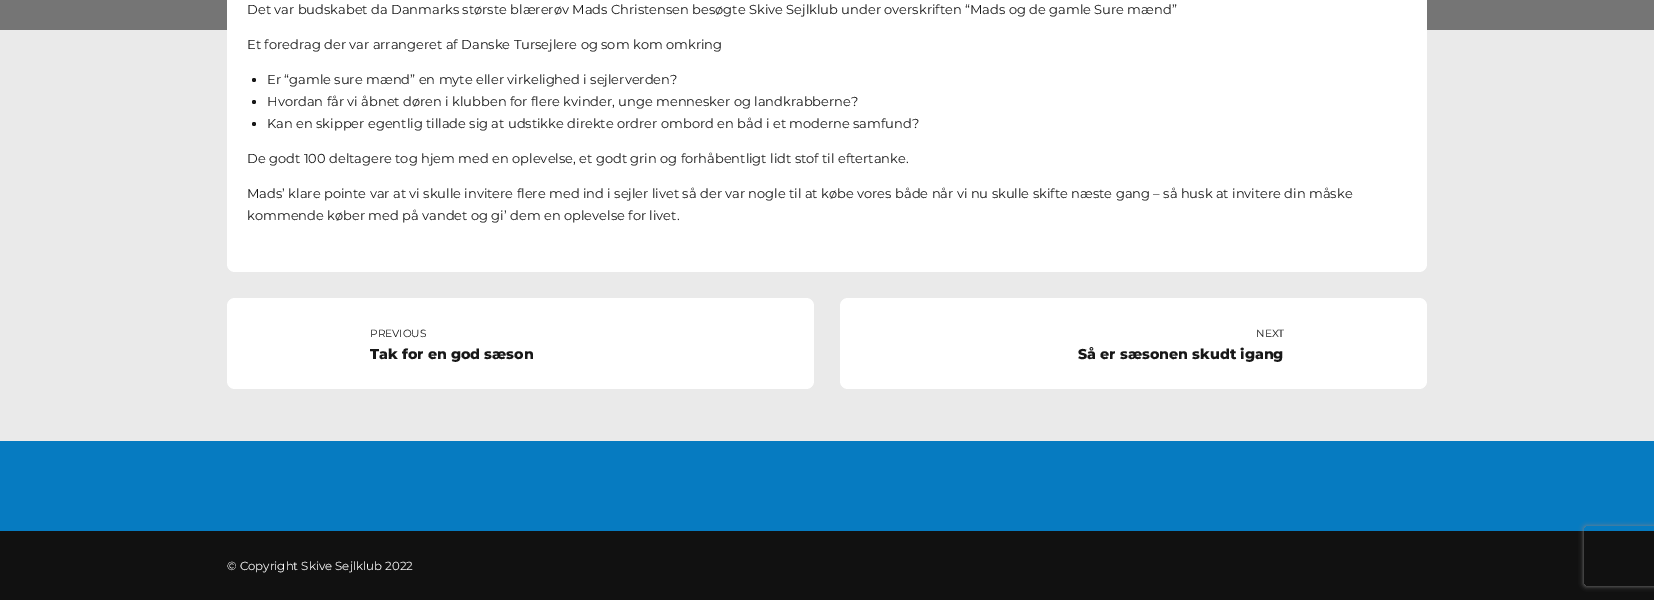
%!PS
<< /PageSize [1654 600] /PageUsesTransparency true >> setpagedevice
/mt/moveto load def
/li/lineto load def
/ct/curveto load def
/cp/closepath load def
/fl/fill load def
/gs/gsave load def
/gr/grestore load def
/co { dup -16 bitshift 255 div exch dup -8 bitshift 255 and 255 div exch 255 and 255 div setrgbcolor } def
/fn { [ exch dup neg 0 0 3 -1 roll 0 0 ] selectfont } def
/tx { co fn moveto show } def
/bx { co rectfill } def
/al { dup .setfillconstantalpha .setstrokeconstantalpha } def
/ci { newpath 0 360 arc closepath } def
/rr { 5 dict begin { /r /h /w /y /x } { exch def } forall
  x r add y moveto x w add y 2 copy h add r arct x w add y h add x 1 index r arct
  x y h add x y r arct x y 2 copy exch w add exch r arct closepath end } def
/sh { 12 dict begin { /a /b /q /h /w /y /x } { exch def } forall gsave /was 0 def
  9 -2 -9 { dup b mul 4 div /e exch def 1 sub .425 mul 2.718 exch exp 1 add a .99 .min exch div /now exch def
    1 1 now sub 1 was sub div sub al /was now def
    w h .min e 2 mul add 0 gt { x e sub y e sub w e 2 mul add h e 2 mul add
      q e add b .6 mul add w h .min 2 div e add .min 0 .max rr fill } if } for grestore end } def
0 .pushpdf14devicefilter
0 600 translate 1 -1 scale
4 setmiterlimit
0 0 1654 600 16#EAEAEA bx
0 0 1654 30 16#757575 bx
16#FFFFFF co
227 -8 1200 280 8 rr fl
16#181818 co
254 80 2 ci fl
254 102 2 ci fl
254 124 2 ci fl
16#FFFFFF co
227 298 587 91 8 rr fl
840 298 587 91 8 rr fl
0 441 1654 90 16#067BC1 bx
0 531 1654 69 16#111111 bx
gs
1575 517 mt 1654 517 li 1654 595 li 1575 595 li cp 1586 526 mt 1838 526 li 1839 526 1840 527 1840 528 ct 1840 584 li 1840 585 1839 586 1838 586 ct 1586 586 li 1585 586 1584 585 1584 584 ct 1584 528 li 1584 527 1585 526 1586 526 ct cp eoclip newpath
16#808080 co
1584 526 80 60 2 2.5 1 sh
gr
(Det var budskabet da Danmarks største blærerøv Mads Christensen besøgte Skive Sejlklub under overskriften “Mads og de gamle Sure mænd”) 247 14 /Montserrat-Regular 13 16#181818 tx
(Et foredrag der var arrangeret af Danske Tursejlere og som kom omkring) 247 49 /Montserrat-Regular 13 16#181818 tx
(Er “gamle sure mænd” en myte eller virkelighed i sejlerverden?) 267 84 /Montserrat-Regular 13 16#181818 tx
(Hvordan får vi åbnet døren i klubben for flere kvinder, unge mennesker og landkrabberne?) 267 106 /Montserrat-Regular 13 16#181818 tx
(Kan en skipper egentlig tillade sig at udstikke direkte ordrer ombord en båd i et moderne samfund?) 267 128 /Montserrat-Regular 13 16#181818 tx
(De godt 100 deltagere tog hjem med en oplevelse, et godt grin og forhåbentligt lidt stof til eftertanke.) 247 163 /Montserrat-Regular 13 16#181818 tx
(Mads’ klare pointe var at vi skulle invitere flere med ind i sejler livet så der var nogle til at købe vores både når vi nu skulle skifte næste gang – så husk at invitere din måske) 247 198 /Montserrat-Regular 13 16#181818 tx
(kommende køber med på vandet og gi’ dem en oplevelse for livet.) 247 220 /Montserrat-Regular 13 16#181818 tx
(PREVIOUS) 370 337 /Montserrat-Regular 10.5 16#181818 tx
(Tak for en god sæson) 370 359 /Montserrat-ExtraBold 14.25 16#181818 tx
(NEXT) 1256 337 /Montserrat-Regular 10.5 16#181818 tx
(Så er sæsonen skudt igang) 1078 359 /Montserrat-ExtraBold 14.25 16#181818 tx
(© Copyright Skive Sejlklub 2022) 227 570 /Montserrat-Regular 11.75 16#FFFFFF tx
.poppdf14devicefilter showpage
